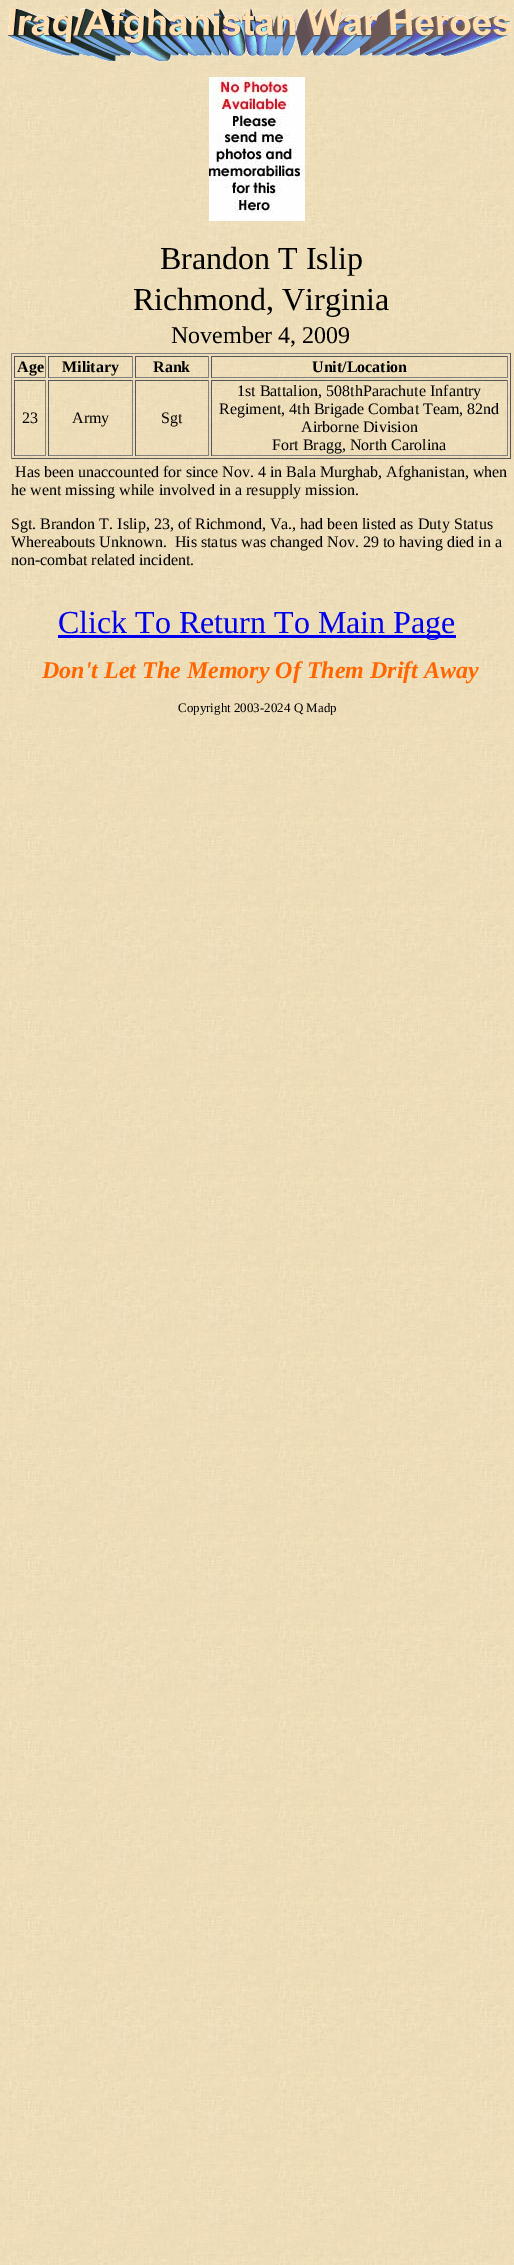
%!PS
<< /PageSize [514 2265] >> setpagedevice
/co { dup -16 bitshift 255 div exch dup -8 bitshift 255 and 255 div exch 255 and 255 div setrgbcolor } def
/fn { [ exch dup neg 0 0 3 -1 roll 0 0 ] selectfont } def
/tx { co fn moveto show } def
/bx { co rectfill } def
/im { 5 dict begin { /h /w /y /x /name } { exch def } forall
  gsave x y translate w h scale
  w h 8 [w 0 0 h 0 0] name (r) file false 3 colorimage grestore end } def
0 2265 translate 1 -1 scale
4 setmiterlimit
0 0 514 2265 16#FFFFFF bx
(media/1.raw) 0 0 514 2265 im
(media/2.raw) 8 8 503 53 im
(media/3.raw) 209 77 96 144 im
11 353 500 1 16#808080 bx
510 353 1 106 16#555555 bx
11 458 500 1 16#555555 bx
11 353 1 106 16#808080 bx
14 356 32 1 16#555555 bx
45 356 1 22 16#808080 bx
14 377 32 1 16#808080 bx
14 356 1 22 16#555555 bx
48 356 85 1 16#555555 bx
132 356 1 22 16#808080 bx
48 377 85 1 16#808080 bx
48 356 1 22 16#555555 bx
135 356 74 1 16#555555 bx
208 356 1 22 16#808080 bx
135 377 74 1 16#808080 bx
135 356 1 22 16#555555 bx
211 356 297 1 16#555555 bx
507 356 1 22 16#808080 bx
211 377 297 1 16#808080 bx
211 356 1 22 16#555555 bx
14 380 32 1 16#555555 bx
45 380 1 76 16#808080 bx
14 455 32 1 16#808080 bx
14 380 1 76 16#555555 bx
48 380 85 1 16#555555 bx
132 380 1 76 16#808080 bx
48 455 85 1 16#808080 bx
48 380 1 76 16#555555 bx
135 380 74 1 16#555555 bx
208 380 1 76 16#808080 bx
135 455 74 1 16#808080 bx
135 380 1 76 16#555555 bx
211 380 297 1 16#555555 bx
507 380 1 76 16#808080 bx
211 455 297 1 16#808080 bx
211 380 1 76 16#555555 bx
58 635 398 3 16#0000EE bx
(Brandon T Islip) 160 269 /LiberationSerif-Regular 32 16#000000 tx
(Richmond, Virginia) 133 310 /LiberationSerif-Regular 32 16#000000 tx
(November 4, 2009) 171 343 /LiberationSerif-Regular 24 16#000000 tx
(Age) 17 372 /LiberationSerif-Bold 16 16#000000 tx
(Military) 62 372 /LiberationSerif-Bold 16 16#000000 tx
(Rank) 153 372 /LiberationSerif-Bold 16 16#000000 tx
(Unit/Location) 312 372 /LiberationSerif-Bold 16 16#000000 tx
(23) 22 423 /LiberationSerif-Regular 16 16#000000 tx
(Army) 72 423 /LiberationSerif-Regular 16 16#000000 tx
(Sgt) 161 423 /LiberationSerif-Regular 16 16#000000 tx
(1st Battalion, 508thParachute Infantry) 237 396 /LiberationSerif-Regular 16 16#000000 tx
(Regiment, 4th Brigade Combat Team, 82nd) 219 414 /LiberationSerif-Regular 16 16#000000 tx
(Airborne Division) 301 432 /LiberationSerif-Regular 16 16#000000 tx
(Fort Bragg, North Carolina) 272 450 /LiberationSerif-Regular 16 16#000000 tx
(Has been unaccounted for since Nov. 4 in Bala Murghab, Afghanistan, when) 15 477 /LiberationSerif-Regular 16 16#000000 tx
(he went missing while involved in a resupply mission.) 11 495 /LiberationSerif-Regular 16 16#000000 tx
(Sgt. Brandon T. Islip, 23, of Richmond, Va., had been listed as Duty Status) 11 529 /LiberationSerif-Regular 16 16#000000 tx
(Whereabouts Unknown.  His status was changed Nov. 29 to having died in a) 11 547 /LiberationSerif-Regular 16 16#000000 tx
(non-combat related incident.) 11 565 /LiberationSerif-Regular 16 16#000000 tx
(Click To Return To Main Page) 58 633 /LiberationSerif-Regular 32 16#0000EE tx
(Don't Let The Memory Of Them Drift Away) 42 678 /LiberationSerif-BoldItalic 24 16#FF6600 tx
(Copyright 2003-2024 Q Madp) 178 712 /LiberationSerif-Regular 13 16#000000 tx
showpage
